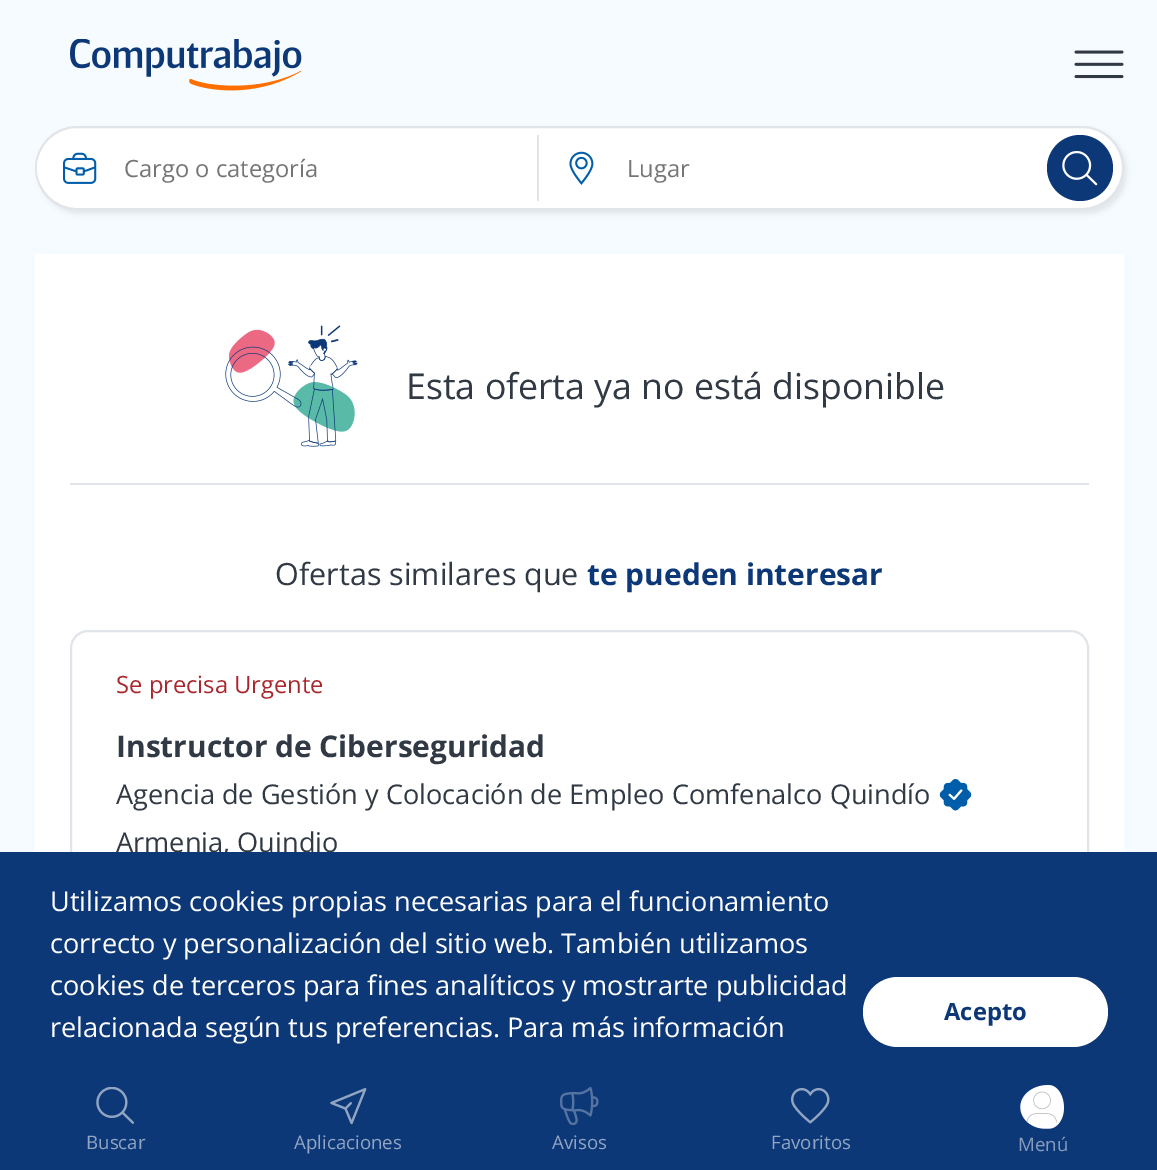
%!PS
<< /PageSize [1157 1170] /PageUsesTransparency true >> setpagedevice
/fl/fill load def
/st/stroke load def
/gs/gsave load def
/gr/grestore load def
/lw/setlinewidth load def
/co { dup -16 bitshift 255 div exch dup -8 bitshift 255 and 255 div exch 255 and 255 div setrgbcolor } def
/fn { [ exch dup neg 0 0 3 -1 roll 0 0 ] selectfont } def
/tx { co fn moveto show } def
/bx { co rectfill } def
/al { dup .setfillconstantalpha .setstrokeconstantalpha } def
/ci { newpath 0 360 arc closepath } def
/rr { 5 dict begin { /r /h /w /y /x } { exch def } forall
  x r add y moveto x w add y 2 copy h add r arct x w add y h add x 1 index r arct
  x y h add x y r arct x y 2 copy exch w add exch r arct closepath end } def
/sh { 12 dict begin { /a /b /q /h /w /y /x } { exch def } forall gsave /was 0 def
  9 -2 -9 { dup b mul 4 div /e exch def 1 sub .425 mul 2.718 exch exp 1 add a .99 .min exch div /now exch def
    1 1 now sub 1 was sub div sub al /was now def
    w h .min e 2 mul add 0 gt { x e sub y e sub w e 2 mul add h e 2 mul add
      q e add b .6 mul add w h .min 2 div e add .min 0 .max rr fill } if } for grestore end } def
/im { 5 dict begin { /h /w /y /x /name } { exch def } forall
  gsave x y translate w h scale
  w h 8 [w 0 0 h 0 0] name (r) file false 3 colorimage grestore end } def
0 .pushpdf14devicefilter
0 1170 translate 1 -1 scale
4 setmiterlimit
0 0 1157 1170 16#F6FBFF bx
(media/1.raw) 70 39 232 52 im
(media/2.raw) 1074 50 50 29 im
16#000000 co
39 130 1088 84 42 2.5 .07 sh
16#FFFFFF co
36 127 1087 82 41 rr gs fl gr
16#E1E5EA co
2 lw
st
16#FFFFFF co
37 135 500 66 33 rr fl
(media/3.raw) 63 152 34 32 im
537 135 2 66 16#E1E5EA bx
(media/4.raw) 569 151 25 34 im
16#0D3878 co
1080 168 33 ci fl
(media/5.raw) 1062 150 36 36 im
35 254 1089 598 16#FFFFFF bx
70 483 1019 2 16#E1E5EA bx
(media/11.raw) 225 325 133 122 im
71 631 1017 324 17 rr st
(media/12.raw) 939 779 33 32 im
(Cargo o categoría) 124 177 /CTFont-Regular 24.5 16#757575 tx
(Lugar) 627 177 /CTFont-Regular 24.5 16#757575 tx
(Esta oferta ya no está disponible) 406 399 /CTFont-Regular 36.75 16#313944 tx
(Ofertas similares que) 275 585 /CTFont-Regular 31.5 16#313944 tx
(te pueden interesar) 587 585 /CTFont-Bold 31.5 16#0D3878 tx
(Se precisa Urgente) 116 693 /CTFont-Regular 24.5 16#A8282D tx
(Instructor de Ciberseguridad) 116 757 /CTFont-Bold 31.5 16#313944 tx
(Agencia de Gestión y Colocación de Empleo Comfenalco Quindío) 116 804 /CTFont-Regular 28 16#313944 tx
(Armenia, Quindio) 116 852 /CTFont-Regular 28 16#313944 tx
0 852 1157 318 16#0D3878 bx
(Menú) 1018 1151 /CTFont-Regular 19.25 16#869CBC tx
(media/10.raw) 1020 1085 44 44 im
(Favoritos) 771 1149 /CTFont-Regular 19.25 16#92A5C2 tx
(media/9.raw) 791 1088 39 36 im
(Avisos) 552 1149 /CTFont-Regular 19.25 16#92A5C2 tx
(media/8.raw) 560 1087 39 38 im
(Aplicaciones) 294 1149 /CTFont-Regular 19.25 16#92A5C2 tx
(media/7.raw) 330 1088 37 37 im
(Buscar) 86 1149 /CTFont-Regular 19.25 16#92A5C2 tx
(media/6.raw) 96 1087 38 37 im
(Utilizamos cookies propias necesarias para el funcionamiento) 50 911 /CTFont-Regular 28 16#FFFFFF tx
(correcto y personalización del sitio web. También utilizamos) 50 953 /CTFont-Regular 28 16#FFFFFF tx
(cookies de terceros para fines analíticos y mostrarte publicidad) 50 995 /CTFont-Regular 28 16#FFFFFF tx
(relacionada según tus preferencias. Para más información) 50 1037 /CTFont-Regular 28 16#FFFFFF tx
863 977 245 70 35 rr fl
(Acepto) 944 1020 /CTFont-Bold 25 16#0D3878 tx
.poppdf14devicefilter showpage
